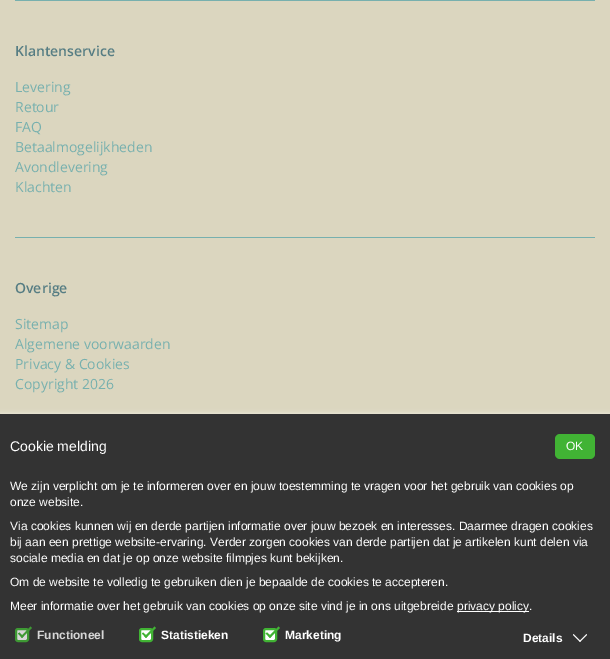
%!PS
<< /PageSize [610 659] /PageUsesTransparency true >> setpagedevice
/mt/moveto load def
/li/lineto load def
/cp/closepath load def
/fl/fill load def
/st/stroke load def
/gs/gsave load def
/gr/grestore load def
/lw/setlinewidth load def
/co { dup -16 bitshift 255 div exch dup -8 bitshift 255 and 255 div exch 255 and 255 div setrgbcolor } def
/fn { [ exch dup neg 0 0 3 -1 roll 0 0 ] selectfont } def
/tx { co fn moveto show } def
/bx { co rectfill } def
/al { dup .setfillconstantalpha .setstrokeconstantalpha } def
/rr { 5 dict begin { /r /h /w /y /x } { exch def } forall
  x r add y moveto x w add y 2 copy h add r arct x w add y h add x 1 index r arct
  x y h add x y r arct x y 2 copy exch w add exch r arct closepath end } def
/sh { 12 dict begin { /a /b /q /h /w /y /x } { exch def } forall gsave /was 0 def
  9 -2 -9 { dup b mul 4 div /e exch def 1 sub .425 mul 2.718 exch exp 1 add a .99 .min exch div /now exch def
    1 1 now sub 1 was sub div sub al /was now def
    w h .min e 2 mul add 0 gt { x e sub y e sub w e 2 mul add h e 2 mul add
      q e add b .6 mul add w h .min 2 div e add .min 0 .max rr fill } if } for grestore end } def
0 .pushpdf14devicefilter
0 659 translate 1 -1 scale
4 setmiterlimit
0 0 610 659 16#DBD6BF bx
15 0 580 1 16#77B0AE bx
15 237 580 1 16#77B0AE bx
16#FFFFFF co
0 414 610 245 0 2.5 .5 sh
0 414 610 245 16#333333 bx
16#41B334 co
555 434 40 25 5 rr fl
457 611 72 1 16#FFFFFF bx
16#D6D6D6 co
16 629 12 12 2 rr gs fl gr
16#3E9934 co
2 lw
st
30.5 626.5 mt 32 628 li 22 638 li 21 636.5 li cp fl
19.5 632.5 mt 23.5 636.5 li 22 638 li 18 633.5 li cp fl
16#FFFFFF co
140 629 12 12 2 rr gs fl gr
16#41B334 co
st
154.5 626.5 mt 156 628 li 146 638 li 144.5 636.5 li cp fl
143 632.5 mt 147.5 636.5 li 146 638 li 142 633.5 li cp fl
16#FFFFFF co
264 629 12 12 2 rr gs fl gr
16#41B334 co
st
278.5 626.5 mt 280 628 li 270 638 li 268.5 636.5 li cp fl
267 632.5 mt 271.5 636.5 li 270 638 li 265.5 633.5 li cp fl
16#FFFFFF co
586.5 634 mt 587 635 li 580 642 li 579.5 641 li cp fl
573.5 634 mt 580.5 641 li 580 642 li 573 635 li cp fl
(Klantenservice) 15 56 /OpenSans-SemiBold 14 16#567D83 tx
(Levering) 15 92 /OpenSans-Regular 14 16#77B0AE tx
(Retour) 15 112 /OpenSans-Regular 14 16#77B0AE tx
(FAQ) 15 132 /OpenSans-Regular 14 16#77B0AE tx
(Betaalmogelijkheden) 15 152 /OpenSans-Regular 14 16#77B0AE tx
(Avondlevering) 15 172 /OpenSans-Regular 14 16#77B0AE tx
(Klachten) 15 192 /OpenSans-Regular 14 16#77B0AE tx
(Overige) 15 293 /OpenSans-SemiBold 14 16#567D83 tx
(Sitemap) 15 329 /OpenSans-Regular 14 16#77B0AE tx
(Algemene voorwaarden) 15 349 /OpenSans-Regular 14 16#77B0AE tx
(Privacy & Cookies) 15 369 /OpenSans-Regular 14 16#77B0AE tx
(Copyright 2026) 15 389 /OpenSans-Regular 14 16#77B0AE tx
(Cookie melding) 10 451 /LiberationSans-Regular 14 16#FFFFFF tx
(OK) 566 450 /LiberationSans-Regular 12 16#FFFFFF tx
(We zijn verplicht om je te informeren over en jouw toestemming te vragen voor het gebruik van cookies op) 10 490 /LiberationSans-Regular 12 16#FFFFFF tx
(onze website.) 10 506 /LiberationSans-Regular 12 16#FFFFFF tx
(Via cookies kunnen wij en derde partijen informatie over jouw bezoek en interesses. Daarmee dragen cookies) 10 530 /LiberationSans-Regular 12 16#FFFFFF tx
(bij aan een prettige website-ervaring. Verder zorgen cookies van derde partijen dat je artikelen kunt delen via) 10 546 /LiberationSans-Regular 12 16#FFFFFF tx
(sociale media en dat je op onze website filmpjes kunt bekijken.) 10 562 /LiberationSans-Regular 12 16#FFFFFF tx
(Om de website te volledig te gebruiken dien je bepaalde de cookies te accepteren.) 10 586 /LiberationSans-Regular 12 16#FFFFFF tx
(Meer informatie over het gebruik van cookies op onze site vind je in ons uitgebreide) 10 610 /LiberationSans-Regular 12 16#FFFFFF tx
(privacy policy.) 457 610 /LiberationSans-Regular 12 16#FFFFFF tx
(Functioneel) 37 639 /LiberationSans-Bold 12 16#D6D6D6 tx
(Statistieken) 161 639 /LiberationSans-Bold 12 16#FFFFFF tx
(Marketing) 285 639 /LiberationSans-Bold 12 16#FFFFFF tx
(Details) 523 642 /LiberationSans-Bold 12 16#FFFFFF tx
.poppdf14devicefilter showpage
